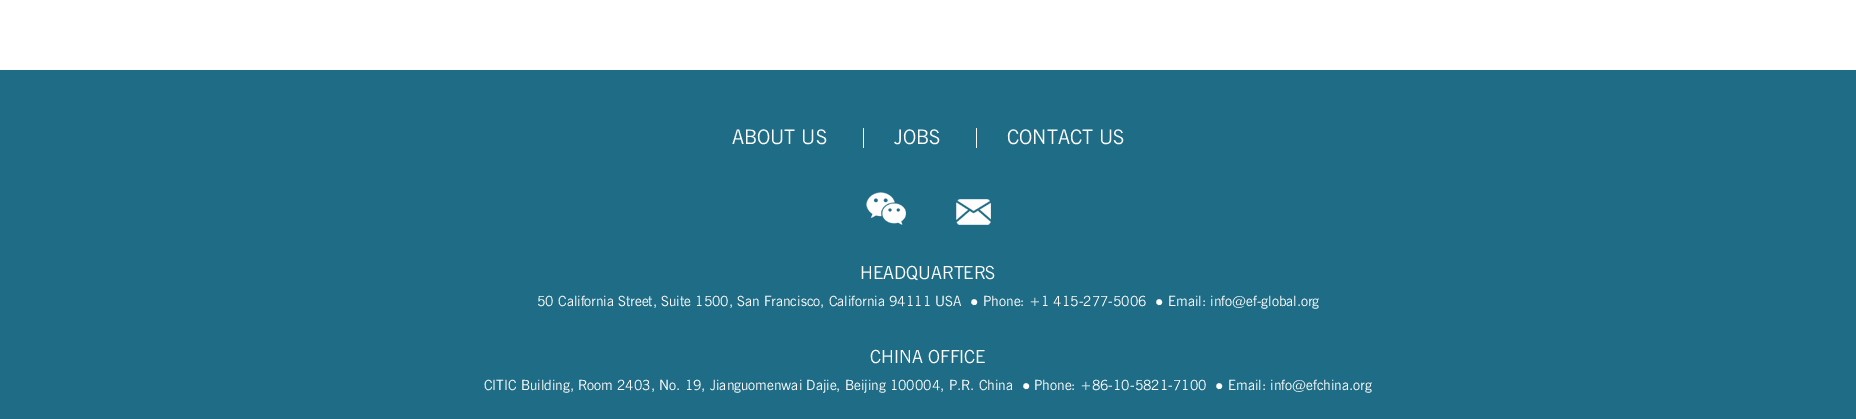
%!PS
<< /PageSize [1856 419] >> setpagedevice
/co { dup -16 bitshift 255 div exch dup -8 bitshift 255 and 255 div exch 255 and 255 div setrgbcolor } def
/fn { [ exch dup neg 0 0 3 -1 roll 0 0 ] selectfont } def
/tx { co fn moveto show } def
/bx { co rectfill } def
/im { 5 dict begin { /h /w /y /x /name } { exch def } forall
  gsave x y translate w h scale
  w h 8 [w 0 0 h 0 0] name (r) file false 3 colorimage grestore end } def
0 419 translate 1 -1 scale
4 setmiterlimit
0 0 1856 419 16#FFFFFF bx
0 70 1856 349 16#1F6C86 bx
863 128 1 20 16#FFFFFF bx
976 128 1 20 16#FFFFFF bx
(media/1.raw) 866 192 40 33 im
(media/2.raw) 956 199 35 26 im
(ABOUT US) 732 144 /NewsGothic-Regular 20 16#FFFFFF tx
(JOBS) 894 144 /NewsGothic-Regular 20 16#FFFFFF tx
(CONTACT US) 1007 144 /NewsGothic-Regular 20 16#FFFFFF tx
(HEADQUARTERS) 860 279 /NewsGothic-Regular 18 16#FFFFFF tx
(50 California Street, Suite 1500, San Francisco, California 94111 USA) 537 306 /NewsGothic-Regular 14 16#FFFFFF tx
(●) 970 306 /LiberationSans-Regular 14 16#FFFFFF tx
(Phone: +1 415-277-5006) 983 306 /NewsGothic-Regular 14 16#FFFFFF tx
(●) 1155 306 /LiberationSans-Regular 14 16#FFFFFF tx
(Email: info@ef-global.org) 1168 306 /NewsGothic-Regular 14 16#FFFFFF tx
(CHINA OFFICE) 870 363 /NewsGothic-Regular 18 16#FFFFFF tx
(CITIC Building, Room 2403, No. 19, Jianguomenwai Dajie, Beijing 100004, P.R. China) 484 390 /NewsGothic-Regular 14 16#FFFFFF tx
(●) 1022 390 /LiberationSans-Regular 14 16#FFFFFF tx
(Phone: +86-10-5821-7100) 1034 390 /NewsGothic-Regular 14 16#FFFFFF tx
(●) 1215 390 /LiberationSans-Regular 14 16#FFFFFF tx
(Email: info@efchina.org) 1228 390 /NewsGothic-Regular 14 16#FFFFFF tx
showpage
